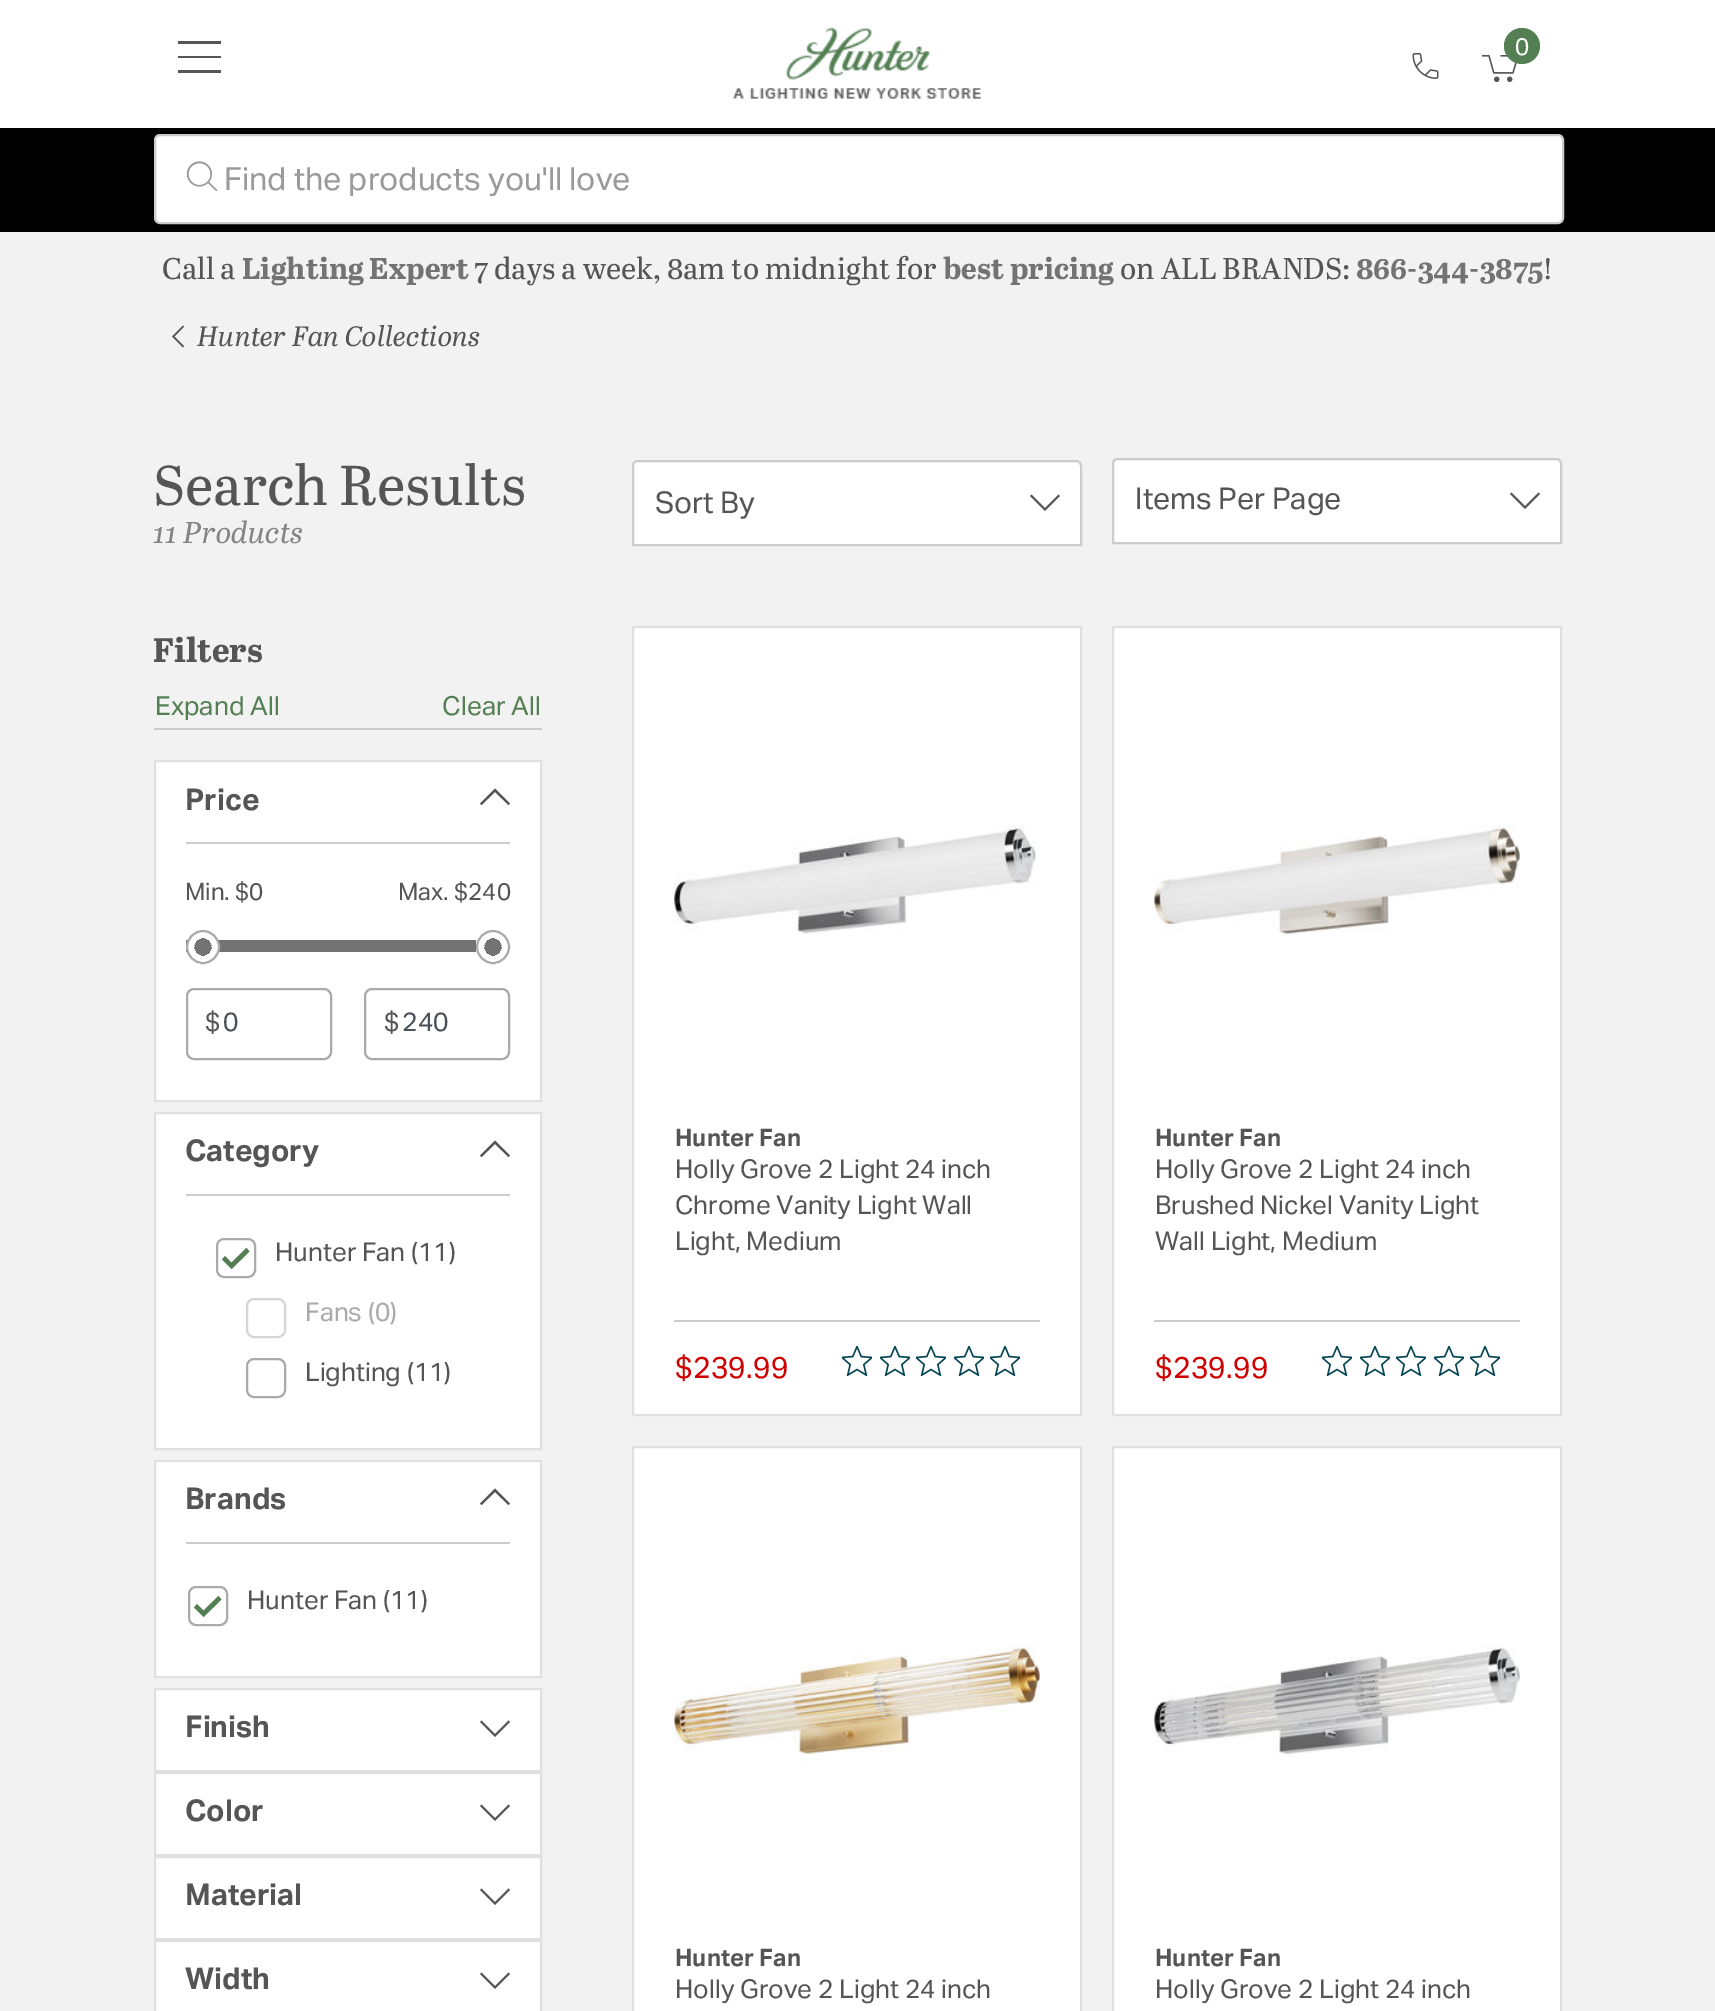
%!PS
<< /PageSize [1715 2011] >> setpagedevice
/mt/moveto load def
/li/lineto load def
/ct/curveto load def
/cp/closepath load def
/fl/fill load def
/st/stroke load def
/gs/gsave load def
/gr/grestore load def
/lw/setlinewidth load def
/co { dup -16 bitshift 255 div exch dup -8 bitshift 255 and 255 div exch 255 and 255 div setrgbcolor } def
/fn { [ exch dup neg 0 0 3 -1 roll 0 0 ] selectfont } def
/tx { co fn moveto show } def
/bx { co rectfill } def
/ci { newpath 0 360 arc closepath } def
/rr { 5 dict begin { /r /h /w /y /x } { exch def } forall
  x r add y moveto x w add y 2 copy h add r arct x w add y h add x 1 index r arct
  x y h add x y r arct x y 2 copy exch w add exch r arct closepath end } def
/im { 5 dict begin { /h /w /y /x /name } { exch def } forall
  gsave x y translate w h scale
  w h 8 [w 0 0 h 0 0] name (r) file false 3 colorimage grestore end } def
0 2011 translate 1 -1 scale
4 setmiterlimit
0 0 1715 2011 16#FFFFFF bx
16#555555 co
178 41 mt 221 41 li 221 44 li 178 44 li cp 178 56 mt 221 56 li 221 58 li 178 58 li cp 178 70 mt 221 70 li 221 73 li 178 73 li cp fl
(media/1.raw) 732 27 250 72 im
(media/2.raw) 1482 55 35 27 im
16#537F53 co
1522 46 18 ci fl
(media/3.raw) 1412 53 27 26 im
0 128 1715 104 16#000000 bx
16#FFFFFF co
155 135 1408 88 5 rr gs fl gr
16#CCCCD0 co
2 lw
st
(media/4.raw) 186 161 32 31 im
0 232 1715 1779 16#F2F2F2 bx
16#555555 co
184 346 mt 183 347.5 li 172 336.5 li 183 325.5 li 184 326.5 li 174.5 336.5 li cp fl
16#FFFFFF co
638 461 mt 1076 461 li 1079 461 1081 463 1081 466 ct 1081 545 li 633 545 li 633 466 li 633 463 635 461 638 461 ct cp gs fl gr
16#CCCCCC co
st
16#555555 co
1058.5 494.5 mt 1060 496 li 1045 511 li 1030 496 li 1031.5 494.5 li 1045 508 li cp fl
16#FFFFFF co
1118 459 mt 1556 459 li 1559 459 1561 461 1561 464 ct 1561 543 li 1113 543 li 1113 464 li 1113 461 1115 459 1118 459 ct cp gs fl gr
16#CCCCCC co
st
16#555555 co
1538.5 492.5 mt 1540 494 li 1525 509 li 1510 494 li 1511.5 492.5 li 1525 506 li cp fl
154 728 388 2 16#CCCCCC bx
16#FFFFFF co
155 761 mt 541 761 li 541 1101 li 155 1101 li cp gs fl gr
16#E0E0E0 co
st
186 842 324 2 16#CCCCCC bx
16#555555 co
481.5 805 mt 480 803.5 li 495 788.5 li 510 803.5 li 508.5 805 li 495 792 li cp fl
186 940 290 12 16#737373 bx
gs
186 930 34 34 17 rr clip newpath
gs 188 932 mt 218 932 li 218 962 li 188 962 li cp clip newpath 203 947 translate 21 21 scale
<< /ShadingType 3 /ColorSpace /DeviceRGB /Coords [0 0 0 0 0 1] /Extend [true true] /Function << /FunctionType 3 /Domain [0 1] /Functions [<< /FunctionType 2 /Domain [0 1] /C0 [.451 .451 .451] /C1 [.451 .451 .451] /N 1 >> << /FunctionType 2 /Domain [0 1] /C0 [1 1 1] /C1 [1 1 1] /N 1 >>] /Bounds [.42] /Encode [0 1 0 1] >> >> shfill gr
gr
16#AAAAAA co
203 947 16 ci st
gs
476 930 34 34 17 rr clip newpath
gs 478 932 mt 508 932 li 508 962 li 478 962 li cp clip newpath 493 947 translate 21 21 scale
<< /ShadingType 3 /ColorSpace /DeviceRGB /Coords [0 0 0 0 0 1] /Extend [true true] /Function << /FunctionType 3 /Domain [0 1] /Functions [<< /FunctionType 2 /Domain [0 1] /C0 [.451 .451 .451] /C1 [.451 .451 .451] /N 1 >> << /FunctionType 2 /Domain [0 1] /C0 [1 1 1] /C1 [1 1 1] /N 1 >>] /Bounds [.42] /Encode [0 1 0 1] >> >> shfill gr
gr
493 947 16 ci st
187 989 144 70 7 rr st
365 989 144 70 7 rr st
16#FFFFFF co
155 1113 mt 541 1113 li 541 1449 li 155 1449 li cp gs fl gr
16#E0E0E0 co
st
186 1194 324 2 16#CCCCCC bx
16#555555 co
481.5 1157 mt 480 1155.5 li 495 1140.5 li 510 1155.5 li 508.5 1157 li 495 1144 li cp fl
16#AAAAAA co
217 1239 38 38 7 rr st
16#537F53 co
231.5 1269 mt 222 1259.5 li 225 1256 li 231.5 1262.5 li 246.5 1248 li 249.5 1251.5 li cp fl
16#D5D5D5 co
247 1299 38 38 7 rr st
16#AAAAAA co
247 1359 38 38 7 rr st
16#FFFFFF co
155 1461 mt 541 1461 li 541 1677 li 155 1677 li cp gs fl gr
16#E0E0E0 co
st
186 1542 324 2 16#CCCCCC bx
16#555555 co
481.5 1505 mt 480 1503.5 li 495 1488.5 li 510 1503.5 li 508.5 1505 li 495 1492 li cp fl
16#AAAAAA co
189 1587 38 38 7 rr st
16#537F53 co
203.5 1617 mt 194 1607.5 li 197 1604 li 203.5 1610.5 li 218.5 1596 li 221.5 1599.5 li cp fl
16#FFFFFF co
155 1689 mt 541 1689 li 541 1771 li 155 1771 li cp gs fl gr
16#E0E0E0 co
st
16#555555 co
508.5 1720.5 mt 510 1722 li 495 1737 li 480 1722 li 481.5 1720.5 li 495 1734 li cp fl
16#FFFFFF co
155 1773 mt 541 1773 li 541 1855 li 155 1855 li cp gs fl gr
16#E0E0E0 co
st
16#555555 co
508.5 1804.5 mt 510 1806 li 495 1821 li 480 1806 li 481.5 1804.5 li 495 1818 li cp fl
16#FFFFFF co
155 1857 mt 541 1857 li 541 1939 li 155 1939 li cp gs fl gr
16#E0E0E0 co
st
16#555555 co
508.5 1888.5 mt 510 1890 li 495 1905 li 480 1890 li 481.5 1888.5 li 495 1902 li cp fl
16#FFFFFF co
155 1941 mt 541 1941 li 541 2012 li 155 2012 li cp gs fl gr
16#E0E0E0 co
st
16#555555 co
508.5 1972.5 mt 510 1974 li 495 1989 li 480 1974 li 481.5 1972.5 li 495 1986 li cp fl
16#FFFFFF co
633 627 mt 1081 627 li 1081 1415 li 633 1415 li cp gs fl gr
16#E0E0E0 co
st
(media/5.raw) 674 825 363 109 im
674 1320 366 2 16#CCCCCC bx
(media/6.raw) 842 1346 30 30 im
(media/6.raw) 880 1346 30 30 im
(media/6.raw) 916 1346 30 30 im
(media/6.raw) 954 1346 30 30 im
(media/6.raw) 990 1346 30 30 im
16#FFFFFF co
1113 627 mt 1561 627 li 1561 1415 li 1113 1415 li cp gs fl gr
16#E0E0E0 co
st
(media/7.raw) 1154 825 366 113 im
1154 1320 366 2 16#CCCCCC bx
(media/6.raw) 1322 1346 30 30 im
(media/6.raw) 1360 1346 30 30 im
(media/6.raw) 1396 1346 30 30 im
(media/6.raw) 1434 1346 30 30 im
(media/6.raw) 1470 1346 30 30 im
16#FFFFFF co
633 1447 mt 1081 1447 li 1081 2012 li 633 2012 li cp gs fl gr
16#E0E0E0 co
st
(media/8.raw) 674 1645 366 117 im
16#FFFFFF co
1113 1447 mt 1561 1447 li 1561 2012 li 1113 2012 li cp gs fl gr
16#E0E0E0 co
st
(media/9.raw) 1154 1645 366 112 im
(0) 1515 55 /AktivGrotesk-Regular 24 16#FFFFFF tx
gs
186 160 1346 36 rectclip
(Find the products you'll love) 224 190 /AktivGrotesk-Regular 32 16#9B9A9A tx
gr
(Call a) 162 279 /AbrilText-Regular 30 16#555555 tx
(Lighting Expert) 242 279 /AbrilText-Bold 30 16#737373 tx
(7 days a week, 8am to midnight for) 474 279 /AbrilText-Regular 30 16#555555 tx
(best pricing) 943 279 /AbrilText-Bold 30 16#737373 tx
(on ALL BRANDS:) 1120 279 /AbrilText-Regular 30 16#555555 tx
(866-344-3875) 1356 279 /AbrilText-Bold 30 16#737373 tx
(!) 1542 279 /AbrilText-Regular 30 16#555555 tx
(Hunter Fan Collections) 197 346 /AbrilText-Italic 28 16#555555 tx
(Search Results) 153 505 /AbrilText-Regular 56 16#555555 tx
(11 Products) 153 543 /AbrilText-Italic 30 16#848484 tx
(Sort By) 655 513 /AktivGrotesk-Regular 30 16#555555 tx
(Items Per Page) 1135 509 /AktivGrotesk-Regular 30 16#555555 tx
(Filters) 153 662 /AbrilText-Bold 34 16#555555 tx
(Expand All) 155 715 /AktivGrotesk-Regular 26.25 16#537F53 tx
(Clear All) 442 715 /AktivGrotesk-Regular 26.25 16#537F53 tx
(Price) 185 810 /AktivGrotesk-Bold 30 16#555555 tx
(Min. $0) 185 900 /AktivGrotesk-Regular 24 16#555555 tx
(Max. $240) 398 900 /AktivGrotesk-Regular 24 16#555555 tx
($) 205 1031 /AktivGrotesk-Regular 26.25 16#555555 tx
(0) 223 1031 /AktivGrotesk-Regular 26.25 16#495057 tx
($) 384 1031 /AktivGrotesk-Regular 26.25 16#555555 tx
(240) 402 1031 /AktivGrotesk-Regular 26.25 16#495057 tx
(Category) 185 1161 /AktivGrotesk-Bold 30 16#555555 tx
(Hunter Fan \(11\)) 275 1261 /AktivGrotesk-Regular 26 16#555555 tx
(Fans \(0\)) 305 1321 /AktivGrotesk-Regular 26 16#AAAAAA tx
(Lighting \(11\)) 305 1381 /AktivGrotesk-Regular 26 16#555555 tx
(Brands) 185 1509 /AktivGrotesk-Bold 30 16#555555 tx
(Hunter Fan \(11\)) 247 1609 /AktivGrotesk-Regular 26 16#555555 tx
(Finish) 185 1737 /AktivGrotesk-Bold 30 16#555555 tx
(Color) 185 1821 /AktivGrotesk-Bold 30 16#555555 tx
(Material) 185 1905 /AktivGrotesk-Bold 30 16#555555 tx
(Width) 185 1989 /AktivGrotesk-Bold 30 16#555555 tx
(Hunter Fan) 675 1146 /AktivGrotesk-Bold 24 16#555555 tx
(Holly Grove 2 Light 24 inch) 675 1178 /AktivGrotesk-Regular 26 16#555555 tx
(Chrome Vanity Light Wall) 675 1214 /AktivGrotesk-Regular 26 16#555555 tx
(Light, Medium) 675 1250 /AktivGrotesk-Regular 26 16#555555 tx
($239.99) 675 1378 /AktivGrotesk-Regular 30 16#D00000 tx
(Hunter Fan) 1155 1146 /AktivGrotesk-Bold 24 16#555555 tx
(Holly Grove 2 Light 24 inch) 1155 1178 /AktivGrotesk-Regular 26 16#555555 tx
(Brushed Nickel Vanity Light) 1155 1214 /AktivGrotesk-Regular 26 16#555555 tx
(Wall Light, Medium) 1155 1250 /AktivGrotesk-Regular 26 16#555555 tx
($239.99) 1155 1378 /AktivGrotesk-Regular 30 16#D00000 tx
(Hunter Fan) 675 1966 /AktivGrotesk-Bold 24 16#555555 tx
(Holly Grove 2 Light 24 inch) 675 1998 /AktivGrotesk-Regular 26 16#555555 tx
(Hunter Fan) 1155 1966 /AktivGrotesk-Bold 24 16#555555 tx
(Holly Grove 2 Light 24 inch) 1155 1998 /AktivGrotesk-Regular 26 16#555555 tx
showpage
